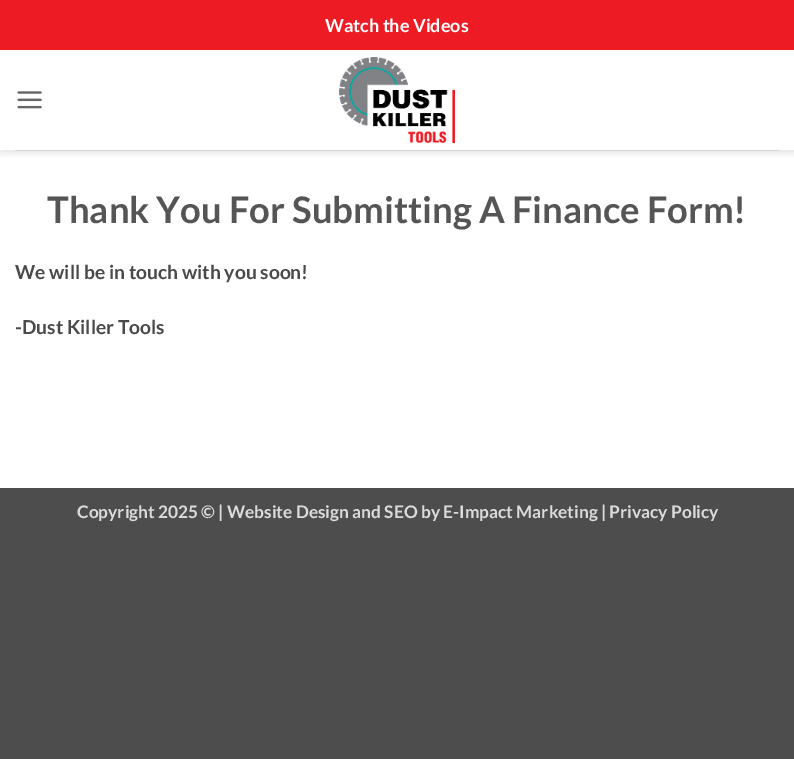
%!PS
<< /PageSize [794 759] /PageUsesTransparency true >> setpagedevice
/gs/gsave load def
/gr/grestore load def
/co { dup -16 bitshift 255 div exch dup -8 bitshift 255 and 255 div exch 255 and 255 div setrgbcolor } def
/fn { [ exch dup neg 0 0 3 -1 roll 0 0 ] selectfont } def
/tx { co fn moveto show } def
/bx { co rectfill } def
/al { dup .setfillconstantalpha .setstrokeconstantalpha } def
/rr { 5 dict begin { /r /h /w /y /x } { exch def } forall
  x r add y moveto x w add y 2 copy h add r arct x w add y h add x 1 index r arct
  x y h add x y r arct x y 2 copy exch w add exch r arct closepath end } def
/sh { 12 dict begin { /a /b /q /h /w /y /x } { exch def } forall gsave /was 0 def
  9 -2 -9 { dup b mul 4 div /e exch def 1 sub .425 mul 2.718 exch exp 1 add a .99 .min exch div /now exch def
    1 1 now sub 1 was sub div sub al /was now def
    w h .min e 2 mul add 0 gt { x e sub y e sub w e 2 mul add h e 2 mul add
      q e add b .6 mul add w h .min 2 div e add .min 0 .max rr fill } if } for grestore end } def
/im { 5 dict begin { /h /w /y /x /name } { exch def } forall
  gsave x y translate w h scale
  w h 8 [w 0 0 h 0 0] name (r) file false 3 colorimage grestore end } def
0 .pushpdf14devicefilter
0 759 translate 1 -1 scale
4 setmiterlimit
0 0 794 759 16#4D4D4D bx
0 50 794 438 16#FFFFFF bx
gs
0 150 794 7 rectclip
16#000000 co
1 1 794 150 0 5 .15 sh
gr
0 0 794 50 16#ED1C24 bx
(media/1.raw) 17 91 25 18 im
(media/2.raw) 339 57 116 86 im
15 150 764 1 16#DADADA bx
(Watch the Videos) 325 32 /Lato-Bold 18 16#FFFFFF tx
(Thank You For Submitting A Finance Form!) 47 223 /Lato-Bold 36.5 16#555555 tx
(We will be in touch with you soon!) 15 279 /Lato-Bold 19.25 16#4A4A4A tx
(-Dust Killer Tools) 15 334 /Lato-Bold 19.25 16#4A4A4A tx
(Copyright 2025 © | Website Design and SEO by E-Impact Marketing | Privacy Policy) 77 518 /Lato-Bold 17.3 16#DBDBDB tx
.poppdf14devicefilter showpage
